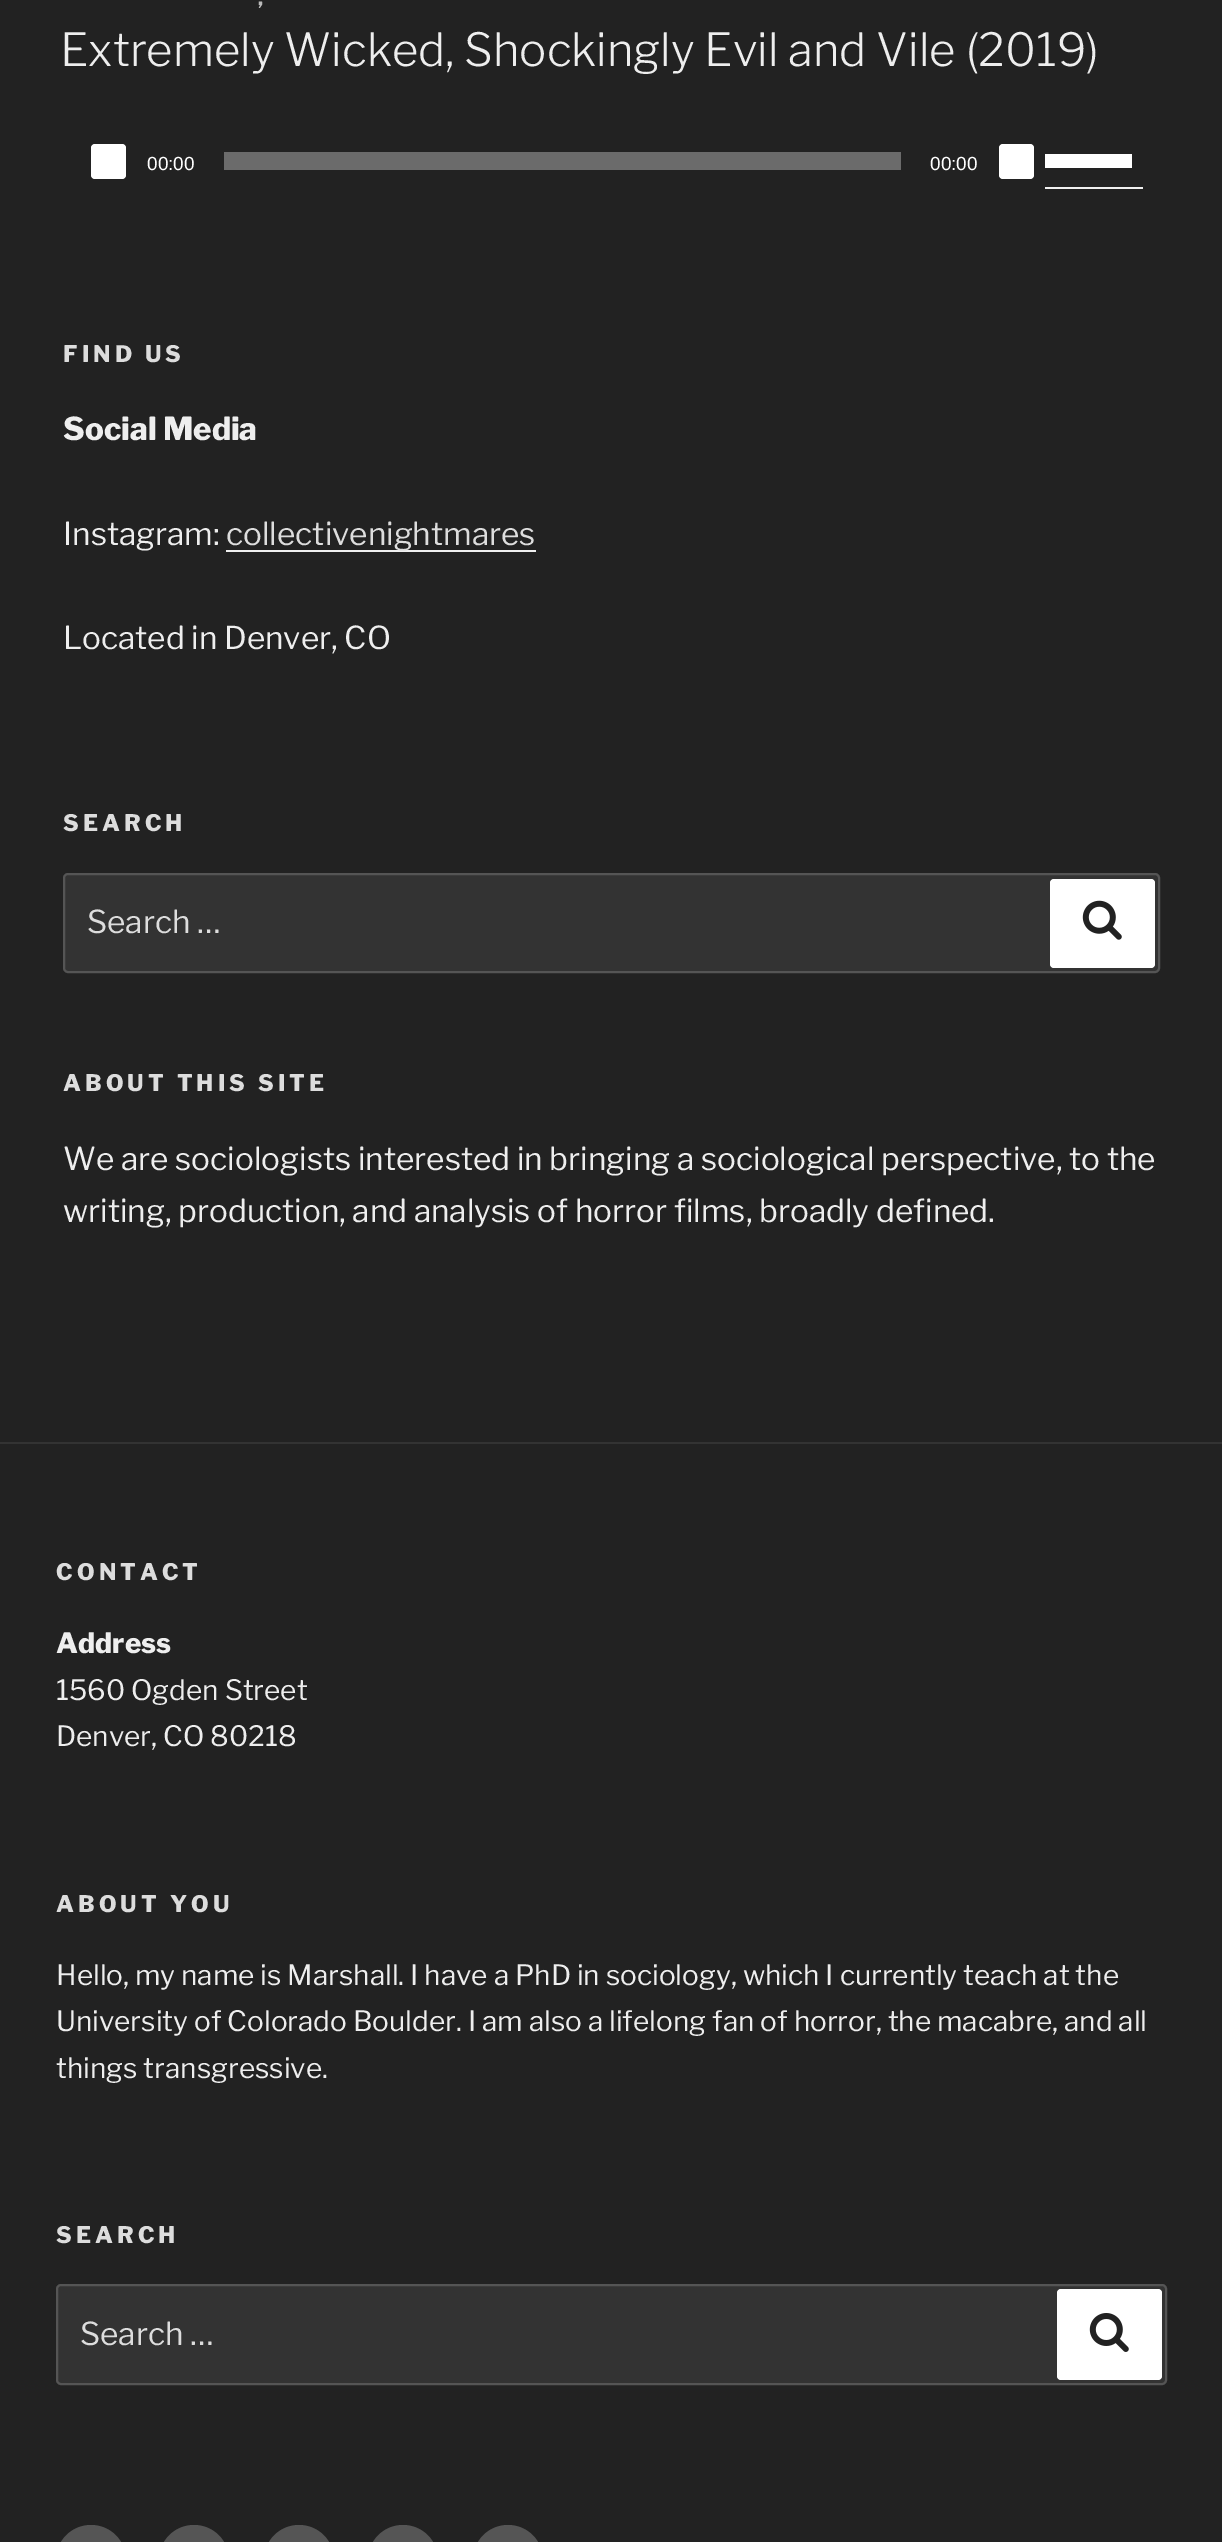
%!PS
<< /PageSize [1222 2542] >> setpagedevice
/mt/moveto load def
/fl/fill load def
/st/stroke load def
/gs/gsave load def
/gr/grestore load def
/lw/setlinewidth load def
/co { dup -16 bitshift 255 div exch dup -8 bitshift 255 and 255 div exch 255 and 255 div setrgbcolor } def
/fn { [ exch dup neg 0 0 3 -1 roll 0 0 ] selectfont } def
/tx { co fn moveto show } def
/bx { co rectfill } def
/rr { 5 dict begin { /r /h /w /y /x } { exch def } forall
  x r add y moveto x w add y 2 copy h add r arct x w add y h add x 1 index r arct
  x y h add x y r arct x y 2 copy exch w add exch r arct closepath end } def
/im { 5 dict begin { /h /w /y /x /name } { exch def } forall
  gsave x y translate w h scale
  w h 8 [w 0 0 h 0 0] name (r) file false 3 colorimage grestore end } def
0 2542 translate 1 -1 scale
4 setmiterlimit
0 0 1222 2542 16#222222 bx
16#FFFFFF co
91 144 35 35 4 rr fl
224 152 677 18 16#6B6B6B bx
16#FFFFFF co
999 144 35 35 4 rr fl
1045 187 98 2 16#F0F0F0 bx
1045 154 87 14 16#FFFFFF bx
226 550 310 2 16#F0F0F0 bx
16#333333 co
64 874 1095 98 4 rr gs fl gr
16#555555 co
2 lw
st
16#FFFFFF co
1050 879 105 89 4 rr fl
(media/1.raw) 1082 900 40 40 im
0 1442 1222 2 16#333333 bx
57 2285 1109 99 4 rr gs fl gr
16#555555 co
st
16#FFFFFF co
1057 2289 105 91 4 rr fl
(media/2.raw) 1089 2313 40 39 im
16#555555 co
56 2525 70 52 35 rr fl
159 2525 70 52 35 rr fl
264 2525 70 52 35 rr fl
368 2525 70 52 35 rr fl
473 2525 70 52 35 rr fl
/LibreFranklin-Thin 19 fn
16#BBBBBB co
258 5 mt 4 0 (,) ashow
(Extremely Wicked, Shockingly Evil and Vile \(2019\)) 60 66 /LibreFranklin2-Thin 45.5 16#EEEEEE tx
(00:00) 147 170 /LiberationSans-Regular 19 16#FFFFFF tx
(00:00) 930 170 /LiberationSans-Regular 19 16#FFFFFF tx
/LibreFranklin-Thin 22.75 fn
16#DDDDDD co
63 362 mt 4.1 0 (FIND US) ashow
(Social Media) 63 440 /LibreFranklin-Thin 31.5 16#EEEEEE tx
(Instagram:) 63 545 /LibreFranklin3-Thin 31.5 16#EEEEEE tx
(collectivenightmares) 226 545 /LibreFranklin3-Thin 31.5 16#DDDDDD tx
(Located in Denver, CO) 63 649 /LibreFranklin3-Thin 31.5 16#EEEEEE tx
/LibreFranklin-Thin 22.75 fn
16#DDDDDD co
63 831 mt 4.1 0 (SEARCH) ashow
(Search …) 87 933 /LibreFranklin3-Thin 31.5 16#DDDDDD tx
/LibreFranklin-Thin 22.75 fn
63 1091 mt 4.1 0 (ABOUT THIS SITE) ashow
(We are sociologists interested in bringing a sociological perspective, to the) 63 1170 /LibreFranklin3-Thin 31.5 16#EEEEEE tx
(writing, production, and analysis of horror films, broadly defined.) 63 1222 /LibreFranklin3-Thin 31.5 16#EEEEEE tx
/LibreFranklin-Thin 22.75 fn
16#DDDDDD co
56 1580 mt 4.1 0 (CONTACT) ashow
(Address) 56 1653 /LibreFranklin-Thin 28 16#EEEEEE tx
(1560 Ogden Street) 56 1700 /LibreFranklin3-Thin 28 16#EEEEEE tx
(Denver, CO 80218) 56 1746 /LibreFranklin3-Thin 28 16#EEEEEE tx
/LibreFranklin-Thin 22.75 fn
16#DDDDDD co
56 1912 mt 4.1 0 (ABOUT YOU) ashow
(Hello, my name is Marshall. I have a PhD in sociology, which I currently teach at the) 56 1985 /LibreFranklin3-Thin 28 16#EEEEEE tx
(University of Colorado Boulder. I am also a lifelong fan of horror, the macabre, and all) 56 2031 /LibreFranklin3-Thin 28 16#EEEEEE tx
(things transgressive.) 56 2078 /LibreFranklin3-Thin 28 16#EEEEEE tx
/LibreFranklin-Thin 22.75 fn
16#DDDDDD co
56 2243 mt 4.1 0 (SEARCH) ashow
(Search …) 80 2345 /LibreFranklin3-Thin 31.5 16#DDDDDD tx
showpage
